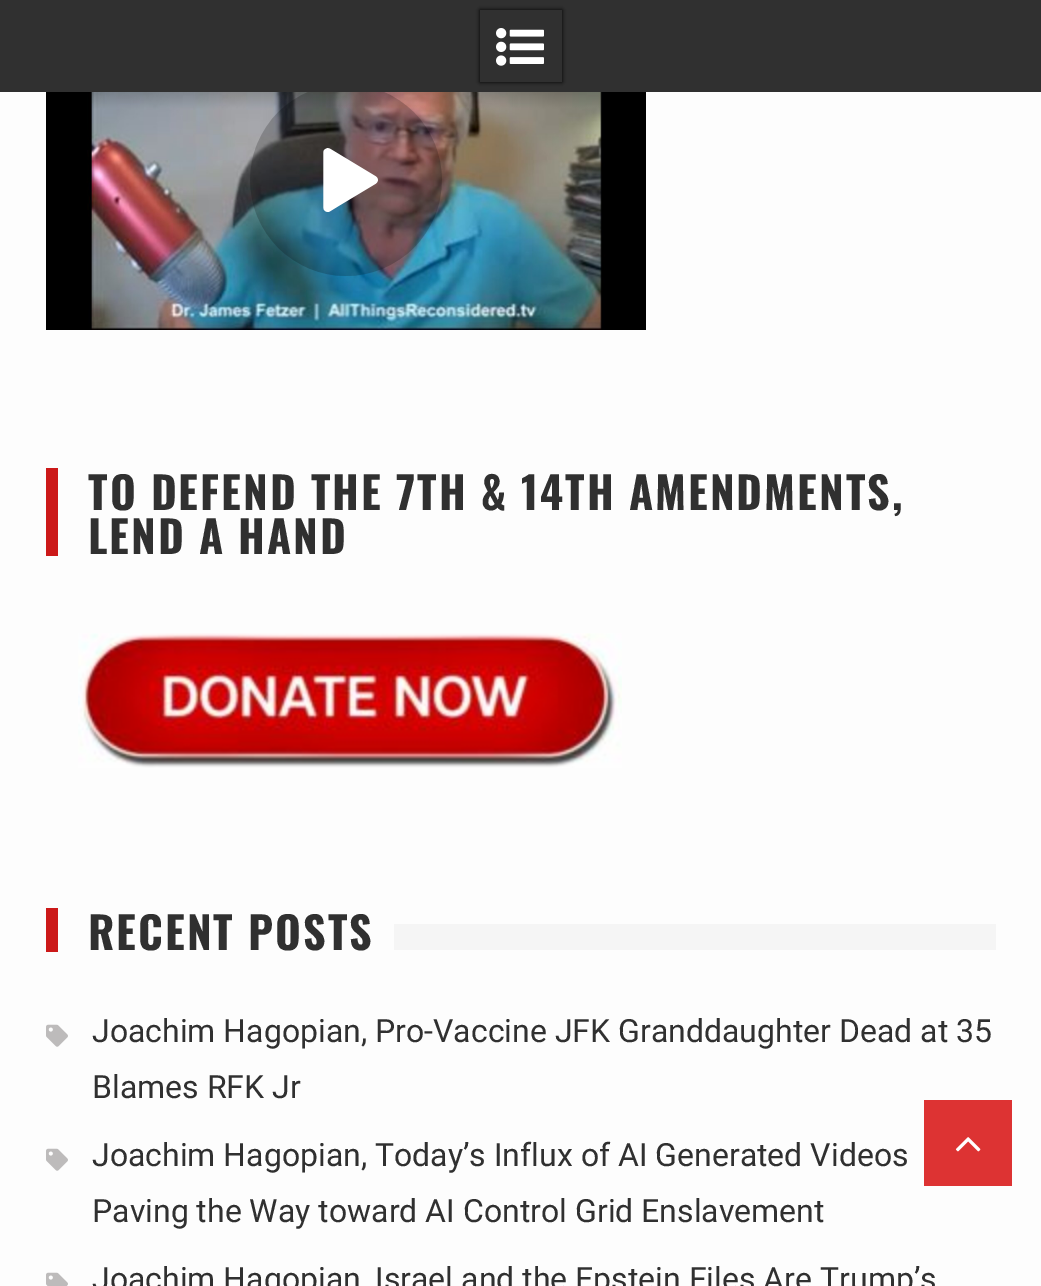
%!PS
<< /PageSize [1041 1286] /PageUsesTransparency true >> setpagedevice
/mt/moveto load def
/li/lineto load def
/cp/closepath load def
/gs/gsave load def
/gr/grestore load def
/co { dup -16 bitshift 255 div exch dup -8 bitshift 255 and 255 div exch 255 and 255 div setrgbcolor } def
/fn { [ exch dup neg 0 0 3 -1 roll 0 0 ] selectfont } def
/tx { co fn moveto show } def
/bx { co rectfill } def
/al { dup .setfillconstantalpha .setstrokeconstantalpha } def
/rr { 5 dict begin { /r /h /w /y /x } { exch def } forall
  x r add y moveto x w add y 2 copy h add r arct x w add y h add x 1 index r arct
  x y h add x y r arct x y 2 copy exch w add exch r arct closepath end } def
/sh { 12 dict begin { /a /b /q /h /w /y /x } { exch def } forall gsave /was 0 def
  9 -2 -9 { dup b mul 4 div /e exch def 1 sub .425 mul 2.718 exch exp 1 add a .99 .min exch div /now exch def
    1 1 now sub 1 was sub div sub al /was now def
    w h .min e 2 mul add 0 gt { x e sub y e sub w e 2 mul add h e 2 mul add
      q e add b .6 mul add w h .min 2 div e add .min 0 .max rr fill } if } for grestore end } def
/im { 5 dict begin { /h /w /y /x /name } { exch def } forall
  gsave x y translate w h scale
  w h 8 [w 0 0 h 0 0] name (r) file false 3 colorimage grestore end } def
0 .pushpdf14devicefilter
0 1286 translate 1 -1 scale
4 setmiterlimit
0 0 1041 1286 16#FDFDFD bx
0 0 1041 92 16#303030 bx
gs
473 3 mt 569 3 li 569 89 li 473 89 li cp 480 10 mt 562 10 li 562 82 li 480 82 li cp eoclip newpath
16#000000 co
480 10 82 72 0 2 1 sh
gr
(media/1.raw) 496 28 48 38 im
(media/2.raw) 46 92 600 238 im
46 468 12 88 16#CC1919 bx
(media/3.raw) 78 633 544 135 im
46 908 12 44 16#CC1919 bx
394 924 602 26 16#F5F5F5 bx
(media/4.raw) 46 1024 22 23 im
(media/4.raw) 46 1148 22 23 im
(media/5.raw) 46 1272 22 14 im
924 1100 88 86 16#DD3333 bx
(media/6.raw) 955 1137 26 15 im
/Oswald-Bold 44 fn
16#303030 co
88 510 mt 2 0 (TO DEFEND THE 7TH & 14TH AMENDMENTS,) ashow
88 554 mt 2 0 (LEND A HAND) ashow
88 950 mt 2 0 (RECENT POSTS) ashow
(Joachim Hagopian, Pro-Vaccine JFK Granddaughter Dead at 35) 92 1042 /Roboto-Regular 32 16#303030 tx
(Blames RFK Jr) 92 1098 /Roboto-Regular 32 16#303030 tx
(Joachim Hagopian, Today’s Influx of AI Generated Videos) 92 1166 /Roboto-Regular 32 16#303030 tx
(Paving the Way toward AI Control Grid Enslavement) 92 1222 /Roboto-Regular 32 16#303030 tx
(Joachim Hagopian, Israel and the Epstein Files Are Trump’s) 92 1290 /Roboto-Regular 32 16#303030 tx
.poppdf14devicefilter showpage
